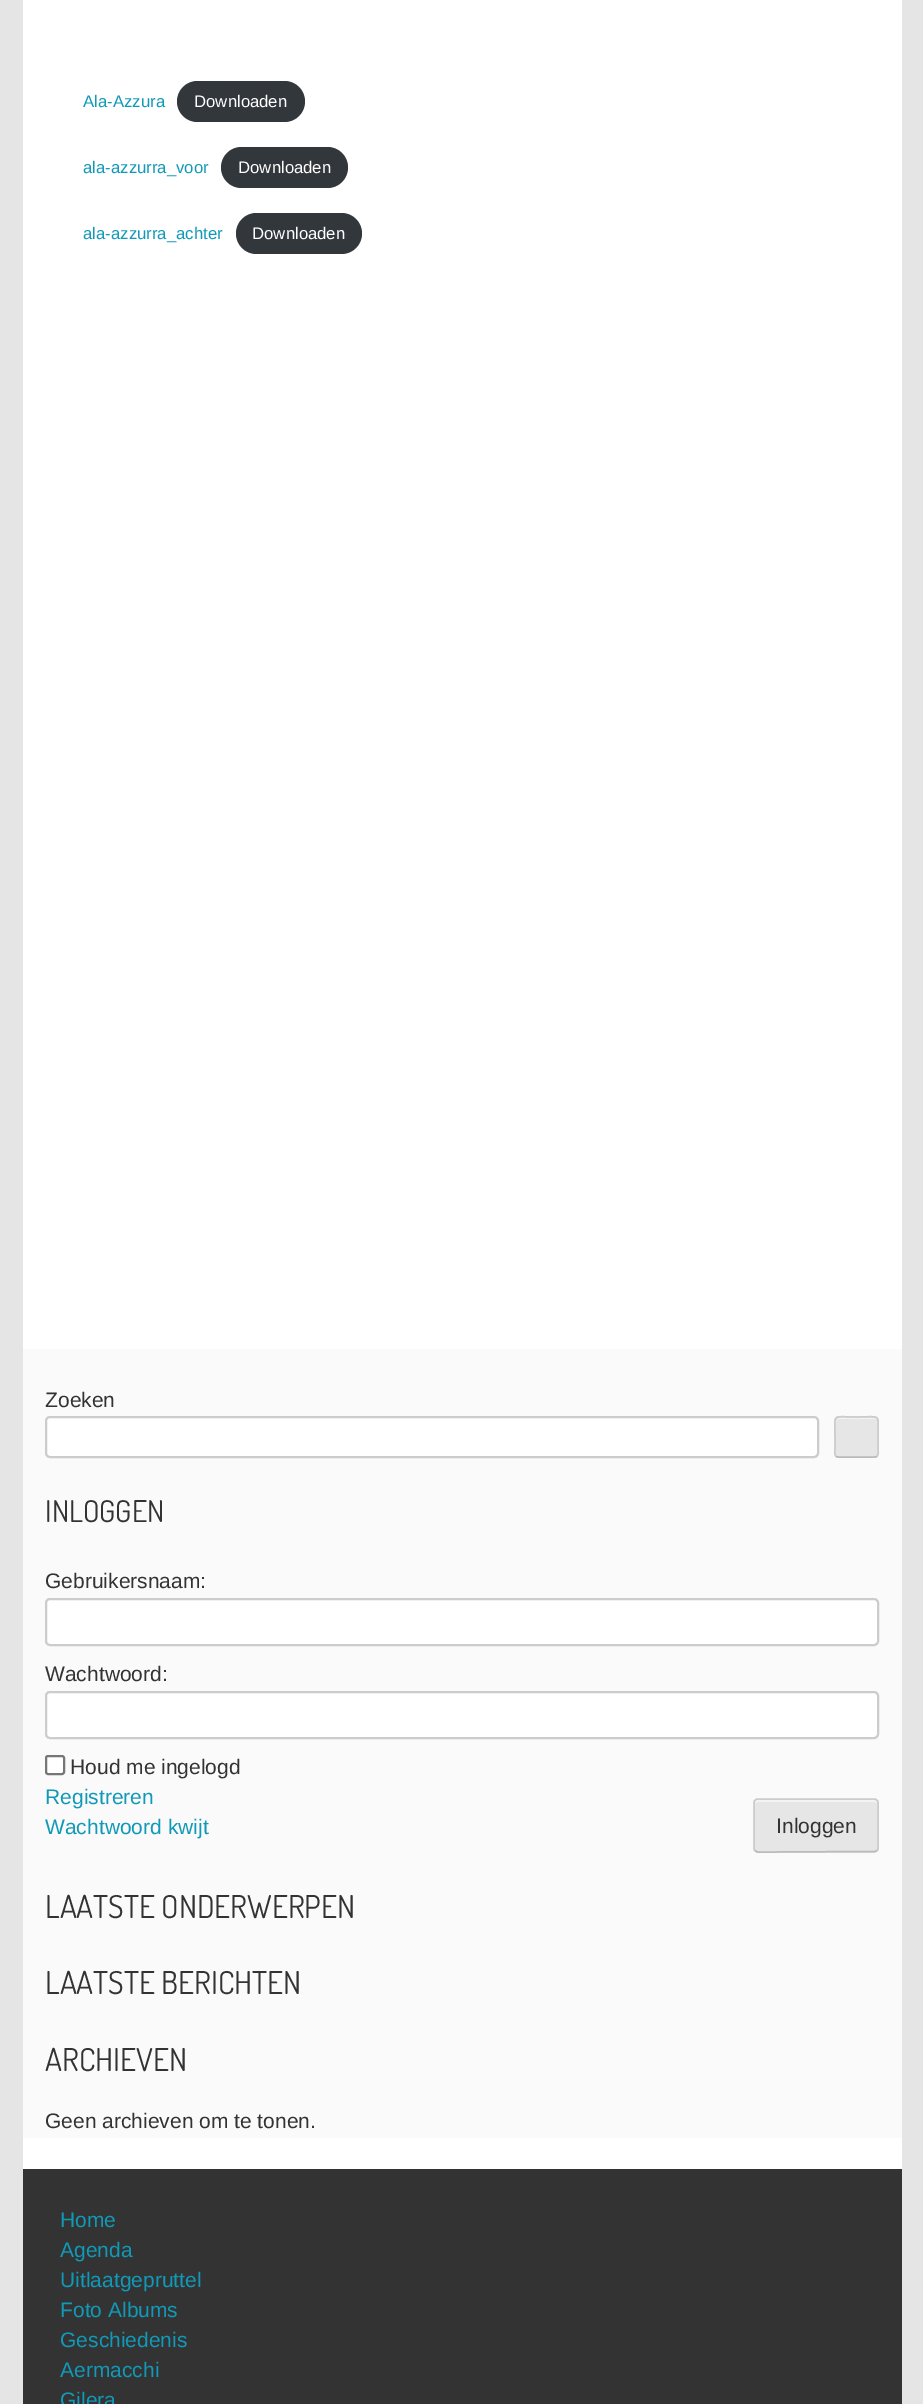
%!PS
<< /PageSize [923 2404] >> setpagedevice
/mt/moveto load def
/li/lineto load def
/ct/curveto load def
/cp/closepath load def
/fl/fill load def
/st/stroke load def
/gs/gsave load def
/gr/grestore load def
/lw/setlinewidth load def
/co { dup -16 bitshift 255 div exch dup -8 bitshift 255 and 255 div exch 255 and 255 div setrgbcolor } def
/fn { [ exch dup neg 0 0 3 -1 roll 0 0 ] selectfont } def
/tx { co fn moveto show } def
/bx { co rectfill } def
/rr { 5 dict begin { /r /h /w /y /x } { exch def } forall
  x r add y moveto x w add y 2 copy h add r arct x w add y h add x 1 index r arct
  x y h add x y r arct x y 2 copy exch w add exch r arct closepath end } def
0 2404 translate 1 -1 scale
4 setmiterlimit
0 0 923 2404 16#E5E5E5 bx
23 0 879 2169 16#FFFFFF bx
16#32373C co
177 81 128 41 20.5 rr fl
221 147 127 41 20.5 rr fl
236 213 126 41 20.5 rr fl
23 1349 879 789 16#FAFAFA bx
16#FFFFFF co
46 1417 772 40 4 rr gs fl gr
16#CCCCCC co
2 lw
st
16#E6E6E6 co
834 1416 45 42 5 rr fl
16#F3F3F3 co
838 1419 mt 874 1419 li 876 1419 878 1420 878 1422 ct 878 1417 873 1418 869 1418 ct 845 1418 li 841 1418 836 1417 836 1422 ct 836 1420 837 1419 838 1419 ct cp fl
16#BBBBBB co
1.5 lw
877 1456 mt 876.5 1457 875.5 1457 874.5 1457 ct 838.5 1457 li 837.5 1457 836.5 1457 836 1456 ct st
16#CCCCCC co
836 1456 mt 834 1454 835 1450 835 1448 ct 835 1437 li 835 1412.5 831 1417 856.5 1417 ct 882 1417 878 1412.5 878 1437 ct 878 1448 li 878 1450 879 1454 877 1456 ct st
16#FFFFFF co
46 1599 832 46 4 rr gs fl gr
16#CCCCCC co
2 lw
st
16#FFFFFF co
46 1692 832 46 4 rr gs fl gr
16#CCCCCC co
st
16#FFFFFF co
46 1756 18 18 2 rr gs fl gr
16#767676 co
st
16#E6E6E6 co
753 1799 126 54 5 rr fl
16#F3F3F3 co
758 1802 mt 874 1802 li 876 1802 878 1803 878 1804 ct 878 1803 li 878 1801 877 1800 875 1800 ct 758 1800 li 756 1800 755 1801 755 1803 ct cp fl
16#BBBBBB co
1.5 lw
877 1850.5 mt 875 1851.5 li 777 1852 li 757.5 1852 li 755 1850.5 li st
16#CCCCCC co
755 1850.5 mt 754 1850 754 1849 754 1848 ct 754 1803 li 754 1802 754 1801 755 1800.5 ct 755.5 1799.5 756.5 1799 757.5 1799 ct 874.5 1799 li 875.5 1799 876.5 1799.5 877 1800.5 ct 878 1801 878 1802 878 1803 ct 878 1848 li 878 1849 878 1850 877 1850.5 ct st
23 2169 879 235 16#333333 bx
(Ala-Azzura) 83 107 /LiberationSans-Regular 16.75 16#1199B8 tx
(Downloaden) 194 107 /LiberationSans-Regular 16.75 16#FFFFFF tx
(ala-azzurra_voor) 83 173 /LiberationSans-Regular 16.75 16#1199B8 tx
(Downloaden) 238 173 /LiberationSans-Regular 16.75 16#FFFFFF tx
(ala-azzurra_achter) 83 239 /LiberationSans-Regular 16.75 16#1199B8 tx
(Downloaden) 252 239 /LiberationSans-Regular 16.75 16#FFFFFF tx
(Zoeken) 45 1407 /LiberationSans-Regular 21 16#333333 tx
(INLOGGEN) 45 1522 /Dosis-Regular 30 16#333333 tx
(Gebruikersnaam:) 45 1588 /LiberationSans-Regular 21 16#333333 tx
(Wachtwoord:) 45 1681 /LiberationSans-Regular 21 16#333333 tx
(Houd me ingelogd) 70 1774 /LiberationSans-Regular 21 16#333333 tx
(Registreren) 45 1804 /LiberationSans-Regular 21 16#1199B8 tx
(Wachtwoord kwijt) 45 1834 /LiberationSans-Regular 21 16#1199B8 tx
(Inloggen) 776 1833 /LiberationSans-Regular 21 16#333333 tx
(LAATSTE ONDERWERPEN) 45 1918 /Dosis-Regular 31.5 16#333333 tx
(LAATSTE BERICHTEN) 45 1994 /Dosis-Regular 31.5 16#333333 tx
(ARCHIEVEN) 45 2071 /Dosis-Regular 31.5 16#333333 tx
(Geen archieven om te tonen.) 45 2128 /LiberationSans-Regular 21 16#333333 tx
(Home) 60 2227 /LiberationSans-Regular 21 16#1199B8 tx
(Agenda) 60 2257 /LiberationSans-Regular 21 16#1199B8 tx
(Uitlaatgepruttel) 60 2287 /LiberationSans-Regular 21 16#1199B8 tx
(Foto Albums) 60 2317 /LiberationSans-Regular 21 16#1199B8 tx
(Geschiedenis) 60 2347 /LiberationSans-Regular 21 16#1199B8 tx
(Aermacchi) 60 2377 /LiberationSans-Regular 21 16#1199B8 tx
(Gilera) 60 2407 /LiberationSans-Regular 21 16#1199B8 tx
showpage
